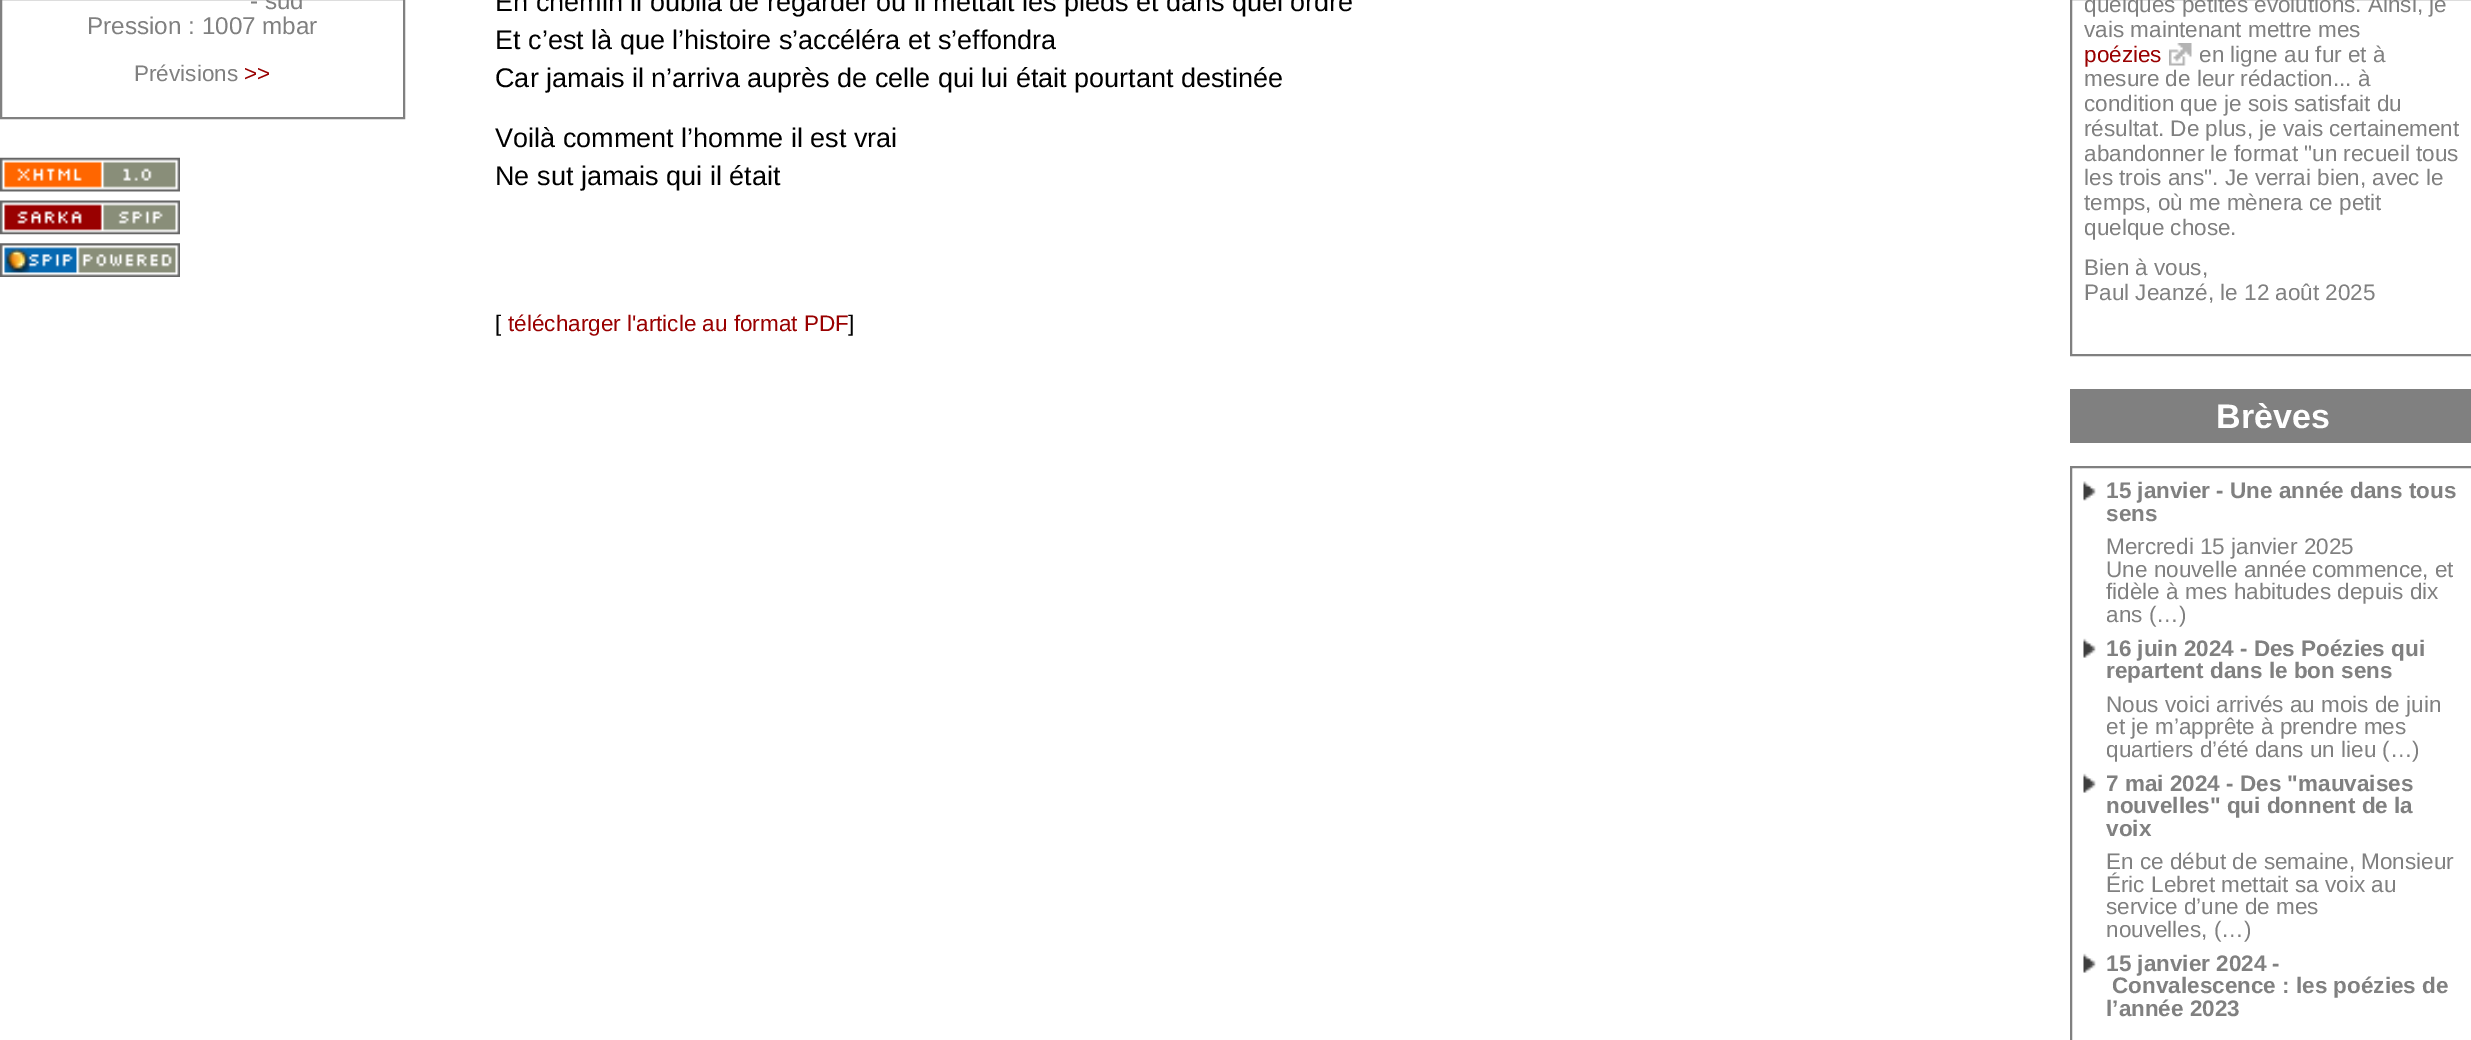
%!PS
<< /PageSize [2471 1040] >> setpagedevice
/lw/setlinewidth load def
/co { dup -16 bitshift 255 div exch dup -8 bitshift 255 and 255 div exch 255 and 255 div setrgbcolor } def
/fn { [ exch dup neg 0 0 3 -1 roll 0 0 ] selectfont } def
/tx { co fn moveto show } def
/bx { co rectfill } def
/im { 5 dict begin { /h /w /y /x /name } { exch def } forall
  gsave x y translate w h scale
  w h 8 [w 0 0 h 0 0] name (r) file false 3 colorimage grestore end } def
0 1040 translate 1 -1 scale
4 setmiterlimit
0 0 2471 1040 16#FFFFFF bx
16#808080 co
2 lw
1 -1 403 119 rectstroke
(media/1.raw) 0 157 180 35 im
(media/2.raw) 0 200 180 35 im
(media/3.raw) 0 243 180 34 im
2071 -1 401 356 rectstroke
(media/4.raw) 2169 43 23 23 im
2070 389 401 54 16#808080 bx
2071 467 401 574 rectstroke
(media/5.raw) 2083 481 13 20 im
(media/6.raw) 2083 638 13 20 im
(media/6.raw) 2083 773 13 20 im
(media/6.raw) 2083 953 13 20 im
(- sud) 250 9 /LiberationSans-Regular 24.25 16#808080 tx
(Pression : 1007 mbar) 87 34 /LiberationSans-Regular 24.25 16#808080 tx
(Prévisions) 134 81 /LiberationSans-Regular 22.5 16#808080 tx
(>>) 244 81 /LiberationSans-Regular 22.5 16#990000 tx
(En chemin il oublia de regarder où il mettait les pieds et dans quel ordre) 495 11 /LiberationSans-Regular 27 16#000000 tx
(Et c’est là que l’histoire s’accéléra et s’effondra) 495 49 /LiberationSans-Regular 27 16#000000 tx
(Car jamais il n’arriva auprès de celle qui lui était pourtant destinée) 495 87 /LiberationSans-Regular 27 16#000000 tx
(Voilà comment l’homme il est vrai) 495 147 /LiberationSans-Regular 27 16#000000 tx
(Ne sut jamais qui il était) 495 185 /LiberationSans-Regular 27 16#000000 tx
([) 495 331 /LiberationSans-Regular 22.5 16#000000 tx
(télécharger l'article au format PDF) 508 331 /LiberationSans-Regular 22.5 16#990000 tx
(]) 848 331 /LiberationSans-Regular 22.5 16#000000 tx
(quelques petites évolutions. Ainsi, je) 2084 12 /LiberationSans-Regular 22.5 16#808080 tx
(vais maintenant mettre mes) 2084 37 /LiberationSans-Regular 22.5 16#808080 tx
(poézies) 2084 62 /LiberationSans-Regular 22.5 16#990000 tx
(en ligne au fur et à) 2199 62 /LiberationSans-Regular 22.5 16#808080 tx
(mesure de leur rédaction... à) 2084 86 /LiberationSans-Regular 22.5 16#808080 tx
(condition que je sois satisfait du) 2084 111 /LiberationSans-Regular 22.5 16#808080 tx
(résultat. De plus, je vais certainement) 2084 136 /LiberationSans-Regular 22.5 16#808080 tx
(abandonner le format "un recueil tous) 2084 161 /LiberationSans-Regular 22.5 16#808080 tx
(les trois ans". Je verrai bien, avec le) 2084 185 /LiberationSans-Regular 22.5 16#808080 tx
(temps, où me mènera ce petit) 2084 210 /LiberationSans-Regular 22.5 16#808080 tx
(quelque chose.) 2084 235 /LiberationSans-Regular 22.5 16#808080 tx
(Bien à vous,) 2084 275 /LiberationSans-Regular 22.5 16#808080 tx
(Paul Jeanzé, le 12 août 2025) 2084 300 /LiberationSans-Regular 22.5 16#808080 tx
(Brèves) 2216 428 /LiberationSans-Bold 34 16#FFFFFF tx
(15 janvier - Une année dans tous) 2106 498 /LiberationSans-Bold 22.5 16#808080 tx
(sens) 2106 521 /LiberationSans-Bold 22.5 16#808080 tx
(Mercredi 15 janvier 2025) 2106 554 /LiberationSans-Regular 22.5 16#808080 tx
(Une nouvelle année commence, et) 2106 577 /LiberationSans-Regular 22.5 16#808080 tx
(fidèle à mes habitudes depuis dix) 2106 599 /LiberationSans-Regular 22.5 16#808080 tx
(ans \(…\)) 2106 622 /LiberationSans-Regular 22.5 16#808080 tx
(16 juin 2024 - Des Poézies qui) 2106 656 /LiberationSans-Bold 22.5 16#808080 tx
(repartent dans le bon sens) 2106 678 /LiberationSans-Bold 22.5 16#808080 tx
(Nous voici arrivés au mois de juin) 2106 712 /LiberationSans-Regular 22.5 16#808080 tx
(et je m’apprête à prendre mes) 2106 734 /LiberationSans-Regular 22.5 16#808080 tx
(quartiers d’été dans un lieu \(…\)) 2106 757 /LiberationSans-Regular 22.5 16#808080 tx
(7 mai 2024 - Des "mauvaises) 2106 791 /LiberationSans-Bold 22.5 16#808080 tx
(nouvelles" qui donnent de la) 2106 813 /LiberationSans-Bold 22.5 16#808080 tx
(voix) 2106 836 /LiberationSans-Bold 22.5 16#808080 tx
(En ce début de semaine, Monsieur) 2106 869 /LiberationSans-Regular 22.5 16#808080 tx
(Éric Lebret mettait sa voix au) 2106 892 /LiberationSans-Regular 22.5 16#808080 tx
(service d’une de mes) 2106 914 /LiberationSans-Regular 22.5 16#808080 tx
(nouvelles, \(…\)) 2106 937 /LiberationSans-Regular 22.5 16#808080 tx
(15 janvier 2024 -) 2106 971 /LiberationSans-Bold 22.5 16#808080 tx
(Convalescence : les poézies de) 2112 993 /LiberationSans-Bold 22.5 16#808080 tx
(l’année 2023) 2106 1016 /LiberationSans-Bold 22.5 16#808080 tx
showpage
